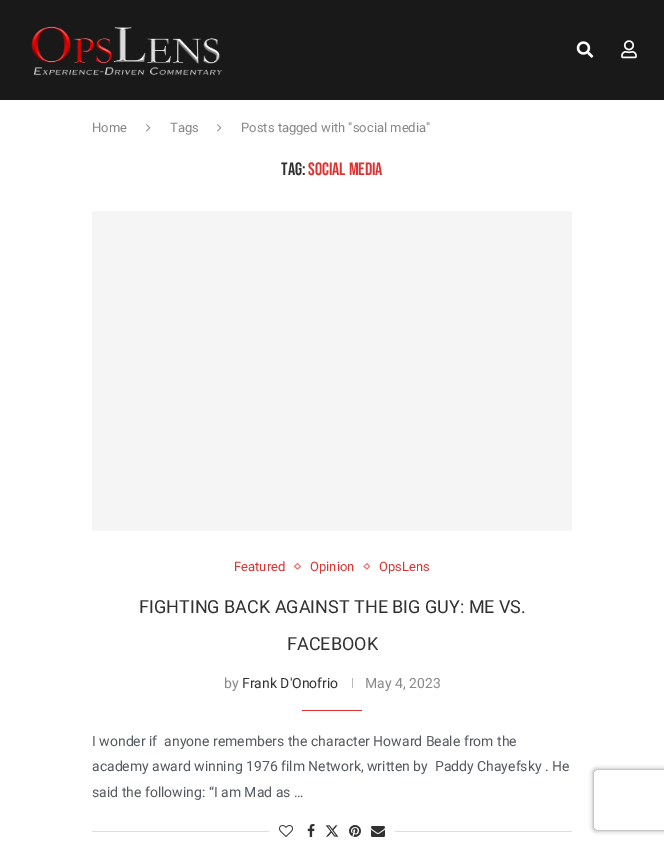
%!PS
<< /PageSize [664 844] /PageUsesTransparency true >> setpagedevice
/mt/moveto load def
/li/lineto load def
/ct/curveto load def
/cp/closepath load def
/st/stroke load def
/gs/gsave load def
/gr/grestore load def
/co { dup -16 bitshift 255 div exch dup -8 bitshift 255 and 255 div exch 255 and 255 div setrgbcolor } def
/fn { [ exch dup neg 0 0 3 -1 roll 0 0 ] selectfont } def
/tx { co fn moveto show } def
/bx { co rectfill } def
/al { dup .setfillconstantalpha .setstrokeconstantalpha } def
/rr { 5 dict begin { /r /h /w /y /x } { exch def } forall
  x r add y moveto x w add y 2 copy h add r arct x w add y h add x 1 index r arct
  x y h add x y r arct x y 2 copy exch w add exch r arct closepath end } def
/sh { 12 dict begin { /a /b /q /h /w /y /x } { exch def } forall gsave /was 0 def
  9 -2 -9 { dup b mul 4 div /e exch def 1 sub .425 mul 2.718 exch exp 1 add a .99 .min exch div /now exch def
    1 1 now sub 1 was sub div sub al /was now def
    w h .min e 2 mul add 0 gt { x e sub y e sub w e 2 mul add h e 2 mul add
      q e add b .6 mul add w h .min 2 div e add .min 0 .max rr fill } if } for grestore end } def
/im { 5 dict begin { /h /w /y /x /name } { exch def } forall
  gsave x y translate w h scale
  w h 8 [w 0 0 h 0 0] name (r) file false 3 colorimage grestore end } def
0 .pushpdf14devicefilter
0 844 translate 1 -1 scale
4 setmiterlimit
0 0 664 844 16#FFFFFF bx
0 0 664 100 16#191919 bx
(media/1.raw) 31 26 192 50 im
(media/2.raw) 576 41 18 17 im
(media/3.raw) 621 40 16 19 im
(media/4.raw) 146 124 5 8 im
(media/4.raw) 217 124 5 8 im
92 211 480 320 16#F5F5F5 bx
16#E97A7A co
297.5 563.5 mt 300.5 566.5 li 297.5 569 li 294.5 566.5 li cp st
367 563.5 mt 369.5 566.5 li 367 569 li 364 566.5 li cp st
352 678 1 10 16#B8B8B8 bx
302 710 60 1 16#DD3333 bx
92 831 480 1 16#DEDEDE bx
269 831 126 1 16#FFFFFF bx
(media/5.raw) 279 825 14 12 im
(media/6.raw) 307 824 8 13 im
(media/7.raw) 325 825 14 12 im
(media/8.raw) 349 825 12 12 im
(media/9.raw) 371 826 14 11 im
gs
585 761 mt 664 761 li 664 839 li 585 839 li cp 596 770 mt 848 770 li 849 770 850 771 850 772 ct 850 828 li 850 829 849 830 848 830 ct 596 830 li 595 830 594 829 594 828 ct 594 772 li 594 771 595 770 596 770 ct cp eoclip newpath
16#808080 co
594 770 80 60 2 2.5 1 sh
gr
(Home) 92 132 /Roboto-Regular 13 16#888888 tx
(Tags) 170 132 /Roboto-Regular 13 16#888888 tx
(Posts tagged with "social media") 241 132 /Roboto-Regular 13 16#888888 tx
(TAG:) 281 175 /BebasNeue-Regular 18 16#313131 tx
(SOCIAL MEDIA) 308 175 /BebasNeue-Regular 18 16#DD3333 tx
(Featured) 234 571 /Roboto-Regular 13 16#DD3333 tx
(Opinion) 310 571 /Roboto-Regular 13 16#DD3333 tx
(OpsLens) 379 571 /Roboto-Regular 13 16#DD3333 tx
(FIGHTING BACK AGAINST THE BIG GUY: ME VS.) 139 613 /Roboto-Regular 18 16#313131 tx
(FACEBOOK) 287 650 /Roboto-Regular 18 16#313131 tx
(by) 224 688 /Roboto-Regular 14 16#888888 tx
(Frank D'Onofrio) 242 688 /Roboto-Regular 14 16#313131 tx
(May 4, 2023) 365 688 /Roboto-Regular 14 16#888888 tx
(I wonder if  anyone remembers the character Howard Beale from the) 92 746 /Roboto-Regular 14 16#54595F tx
(academy award winning 1976 film Network, written by  Paddy Chayefsky . He) 92 771 /Roboto-Regular 14 16#54595F tx
(said the following: “I am Mad as …) 92 797 /Roboto-Regular 14 16#54595F tx
.poppdf14devicefilter showpage
